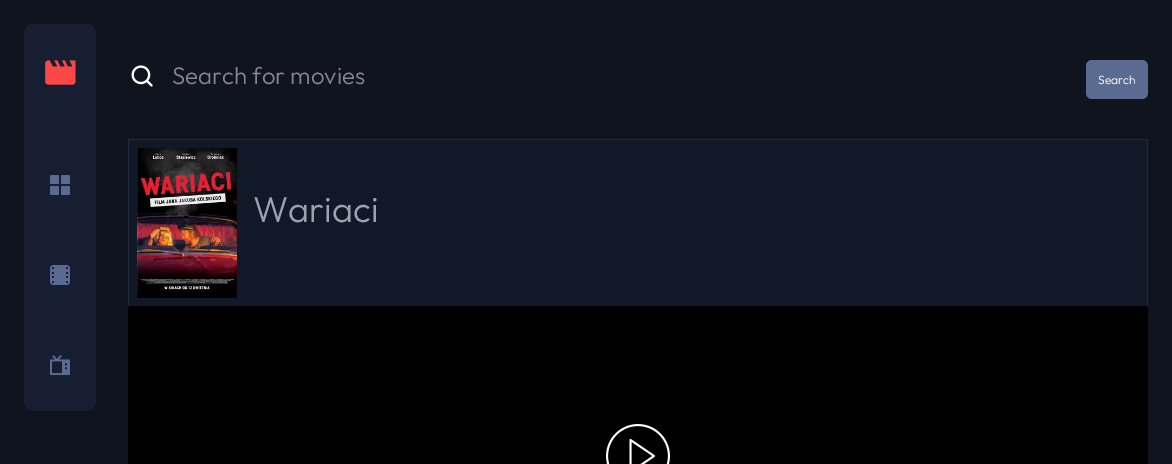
%!PS
<< /PageSize [1172 464] >> setpagedevice
/fl/fill load def
/co { dup -16 bitshift 255 div exch dup -8 bitshift 255 and 255 div exch 255 and 255 div setrgbcolor } def
/fn { [ exch dup neg 0 0 3 -1 roll 0 0 ] selectfont } def
/tx { co fn moveto show } def
/bx { co rectfill } def
/rr { 5 dict begin { /r /h /w /y /x } { exch def } forall
  x r add y moveto x w add y 2 copy h add r arct x w add y h add x 1 index r arct
  x y h add x y r arct x y 2 copy exch w add exch r arct closepath end } def
/im { 5 dict begin { /h /w /y /x /name } { exch def } forall
  gsave x y translate w h scale
  w h 8 [w 0 0 h 0 0] name (r) file false 3 colorimage grestore end } def
0 464 translate 1 -1 scale
4 setmiterlimit
0 0 1172 464 16#10141E bx
16#171E31 co
24 24 72 387 10 rr fl
(media/1.raw) 45 60 31 25 im
(media/2.raw) 50 175 20 20 im
(media/3.raw) 50 265 20 20 im
(media/4.raw) 50 355 20 20 im
(media/5.raw) 131 65 22 22 im
16#5A6A90 co
1086 60 62 39 6 rr fl
129 140 1018 166 16#111827 bx
128 139 1020 1 16#1F2937 bx
1147 139 1 167 16#1F2937 bx
128 139 1 167 16#1F2937 bx
(media/6.raw) 137 148 100 150 im
128 306 1020 158 16#000000 bx
(media/7.raw) 606 424 64 40 im
(Search for movies) 172 84 /Outfit-Light 24 16#86888D tx
(Search) 1098 84 /Outfit-Light 12 16#FFFFFF tx
(Wariaci) 253 222 /Outfit-Light 36 16#9CA3AF tx
showpage
